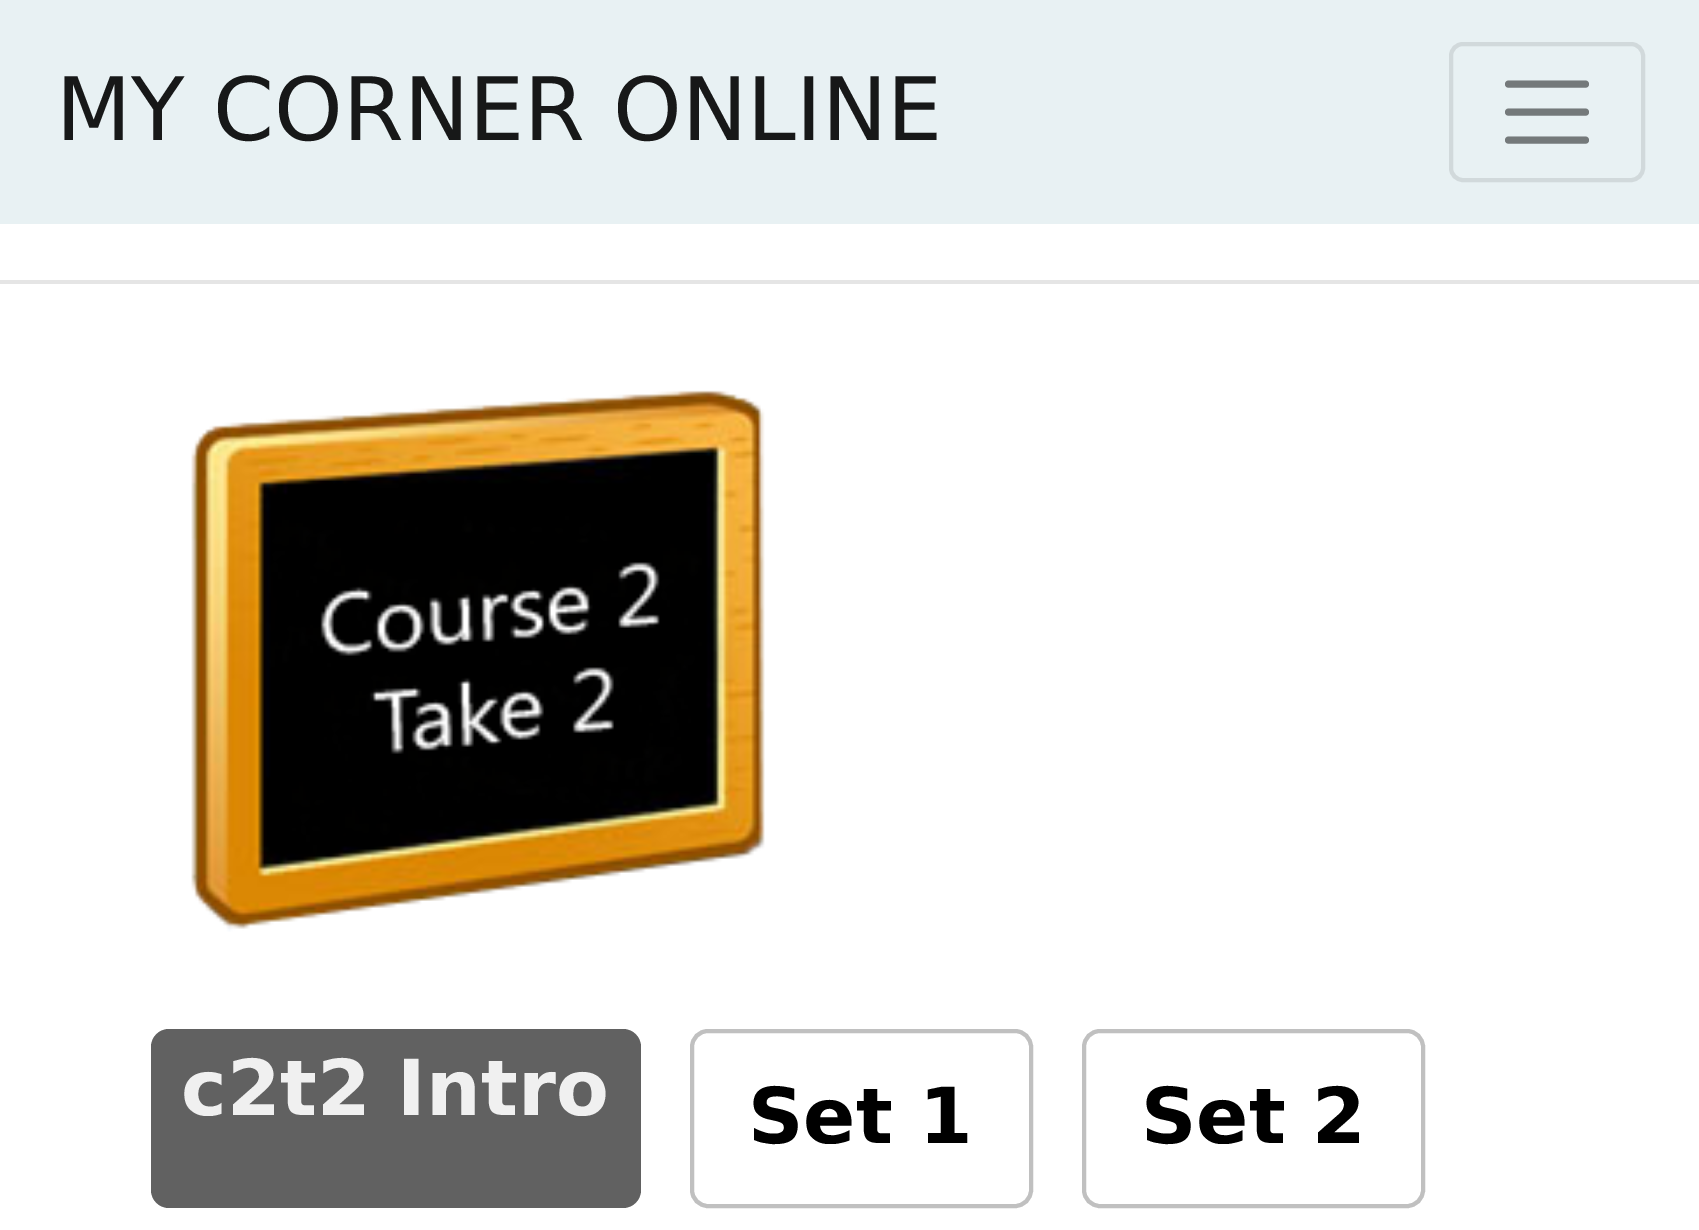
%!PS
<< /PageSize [1699 1230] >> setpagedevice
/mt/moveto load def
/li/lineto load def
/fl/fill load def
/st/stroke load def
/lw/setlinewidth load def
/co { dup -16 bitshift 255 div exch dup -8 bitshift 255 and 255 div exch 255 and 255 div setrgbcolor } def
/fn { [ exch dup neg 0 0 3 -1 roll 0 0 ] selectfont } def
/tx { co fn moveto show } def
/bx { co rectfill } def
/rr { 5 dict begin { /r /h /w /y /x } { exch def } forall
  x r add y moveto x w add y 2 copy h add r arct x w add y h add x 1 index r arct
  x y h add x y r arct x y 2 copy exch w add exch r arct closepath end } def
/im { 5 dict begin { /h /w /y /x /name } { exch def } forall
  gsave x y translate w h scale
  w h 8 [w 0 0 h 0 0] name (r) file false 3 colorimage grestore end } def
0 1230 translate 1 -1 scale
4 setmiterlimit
0 0 1699 1230 16#FFFFFF bx
0 0 1699 224 16#E8F1F3 bx
16#D1D9DB co
4 lw
1451 44 192 136 12 rr st
16#74797A co
7 lw
1 setlinecap
1508.5 84 mt 1585.5 84 li 1508.5 112 mt 1585.5 112 li 1508.5 140 mt 1585.5 140 li st
0 280 1699 4 16#E5E5E5 bx
(media/1.raw) 191 390 574 542 im
16#616161 co
151 1029 490 179 18 rr fl
16#C0C0C0 co
4 lw
0 setlinecap
692 1031 339 175 16 rr st
1084 1031 339 175 16 rr st
(MY CORNER ONLINE) 56 140 /DejaVuSans-Regular 87.5 16#171818 tx
(c2t2 Intro) 181 1115 /DejaVuSans-Bold 77 16#F0F0F0 tx
(Set 1) 748 1143 /DejaVuSans-Bold 77 16#000000 tx
(Set 2) 1141 1143 /DejaVuSans-Bold 77 16#000000 tx
showpage
